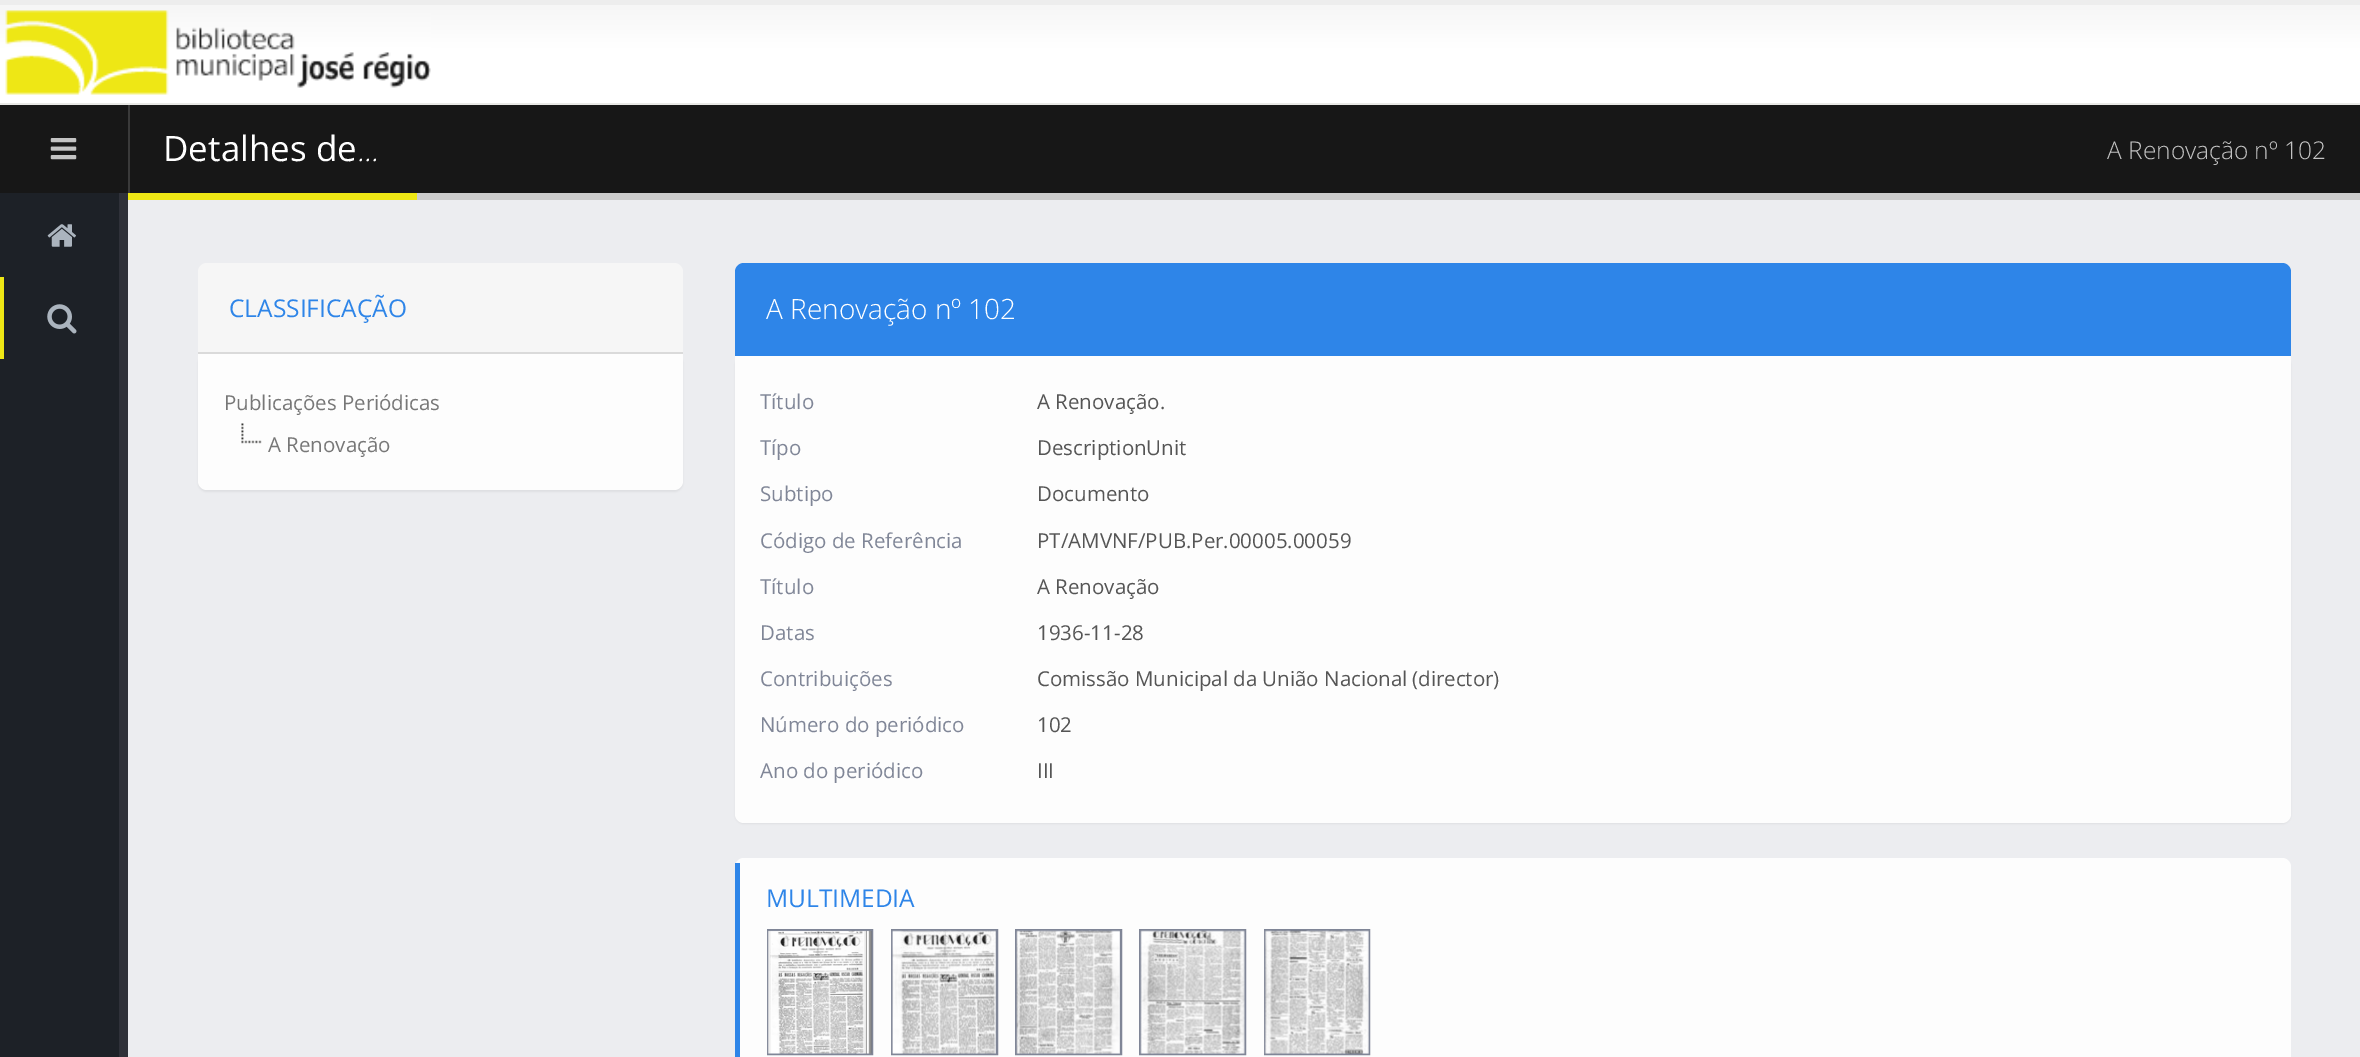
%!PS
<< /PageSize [2360 1057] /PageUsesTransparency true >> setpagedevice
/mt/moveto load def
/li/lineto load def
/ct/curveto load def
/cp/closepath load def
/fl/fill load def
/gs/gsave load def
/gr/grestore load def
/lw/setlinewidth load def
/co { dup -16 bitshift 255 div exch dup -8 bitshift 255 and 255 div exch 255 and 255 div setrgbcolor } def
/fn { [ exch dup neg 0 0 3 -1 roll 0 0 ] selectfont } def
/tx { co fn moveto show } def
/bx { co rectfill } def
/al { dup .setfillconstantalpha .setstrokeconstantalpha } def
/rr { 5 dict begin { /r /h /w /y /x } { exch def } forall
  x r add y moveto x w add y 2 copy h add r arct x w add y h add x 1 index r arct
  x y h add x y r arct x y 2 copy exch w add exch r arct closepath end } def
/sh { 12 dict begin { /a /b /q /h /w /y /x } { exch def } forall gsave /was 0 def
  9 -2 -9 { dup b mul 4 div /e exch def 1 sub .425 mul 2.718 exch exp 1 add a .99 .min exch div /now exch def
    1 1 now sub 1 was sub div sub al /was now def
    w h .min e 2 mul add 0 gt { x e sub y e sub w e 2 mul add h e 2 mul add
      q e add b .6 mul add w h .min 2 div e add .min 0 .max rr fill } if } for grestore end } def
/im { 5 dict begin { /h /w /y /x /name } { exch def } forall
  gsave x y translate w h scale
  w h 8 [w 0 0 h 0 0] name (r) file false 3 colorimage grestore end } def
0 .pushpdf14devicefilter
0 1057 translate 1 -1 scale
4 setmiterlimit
0 0 2360 1057 16#ECEDF0 bx
gs 0 5 mt 2360 5 li 2360 103 li 0 103 li cp clip newpath
<< /ShadingType 2 /ColorSpace /DeviceRGB /Coords [1180 5.2 1180 103] /Extend [true true] /Function << /FunctionType 3 /Domain [0 1] /Functions [<< /FunctionType 2 /Domain [0 1] /C0 [.965 .965 .965] /C1 [1 1 1] /N 1 >> << /FunctionType 2 /Domain [0 1] /C0 [1 1 1] /C1 [1 1 1] /N 1 >>] /Bounds [.45] /Encode [0 1 0 1] >> >> shfill gr
0 0 2360 5 16#EDEDED bx
0 103 2360 2 16#E9E9E6 bx
(media/1.raw) 5 10 426 85 im
0 105 128 88 16#171717 bx
(media/2.raw) 50 138 27 22 im
0 193 119 864 16#1D2127 bx
119 193 9 864 16#2F3139 bx
(media/3.raw) 47 224 29 23 im
0 277 4 82 16#EEE715 bx
(media/4.raw) 47 304 30 30 im
16#CCCCCC co
128 192 mt 128 200 li 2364 200 li 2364 109 li 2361 109 li 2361 192 li cp fl
130 105 2230 88 16#171717 bx
128 105 2 88 16#3A3A3A bx
128 193 289 7 16#EEE715 bx
16#000000 co
198 355 485 137 9 1 .05 sh
16#F6F6F6 co
207 263 mt 674 263 li 679 263 683 267 683 272 ct 683 354 li 198 354 li 198 272 li 198 267 202 263 207 263 ct cp fl
198 352 485 2 16#DADADA bx
16#FDFDFD co
198 354 mt 683 354 li 683 481 li 683 486 679 490 674 490 ct 207 490 li 202 490 198 486 198 481 ct cp fl
(media/5.raw) 241 423 21 21 im
16#000000 co
735 357 1556 467 9 1 .05 sh
16#2E85E8 co
744 263 mt 2282 263 li 2287 263 2291 267 2291 272 ct 2291 355 li 735 355 li 735 272 li 735 267 739 263 744 263 ct cp fl
16#FDFDFD co
735 355 mt 2291 355 li 2291 814 li 2291 819 2287 823 2282 823 ct 744 823 li 739 823 735 819 735 814 ct cp fl
735 355 1556 1 16#2E85E8 bx
16#FDFDFD co
735 858 1556 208 9 rr fl
735 863 5 194 16#2E85E8 bx
16#808697 co
2 lw
768 930 104 124 rectstroke
769 931 102 122 16#808697 bx
(media/6.raw) 767 930 105 124 im
892 930 105 124 rectstroke
893 931 103 122 16#808697 bx
(media/7.raw) 891 930 105 124 im
1016 930 105 124 rectstroke
1017 931 103 122 16#808697 bx
(media/8.raw) 1016 930 104 124 im
1140 930 105 124 rectstroke
1141 931 103 122 16#808697 bx
(media/9.raw) 1140 930 105 124 im
1265 930 104 124 rectstroke
1266 931 102 122 16#808697 bx
(media/10.raw) 1264 930 105 124 im
(Detalhes de) 163 161 /OpenSans-Regular 35 16#FFFFFF tx
(...) 357 161 /OpenSans-LightItalic 30 16#FFFFFF tx
(A Renovação nº 102) 2107 159 /OpenSans-Light 24.5 16#C3C3C3 tx
(CLASSIFICAÇÃO) 229 317 /OpenSans-Regular 24.5 16#2E85E8 tx
(Publicações Periódicas) 224 410 /OpenSans-Regular 20.5 16#777777 tx
(A Renovação) 268 452 /OpenSans-Regular 20.5 16#777777 tx
(A Renovação nº 102) 766 319 /OpenSans-Light 28 16#FFFFFF tx
(Título) 760 409 /OpenSans-Regular 20.5 16#808697 tx
(A Renovação.) 1037 409 /OpenSans-Regular 20.5 16#555555 tx
(Típo) 760 455 /OpenSans-Regular 20.5 16#808697 tx
(DescriptionUnit) 1037 455 /OpenSans-Regular 20.5 16#555555 tx
(Subtipo) 760 501 /OpenSans-Regular 20.5 16#808697 tx
(Documento) 1037 501 /OpenSans-Regular 20.5 16#555555 tx
(Código de Referência) 760 548 /OpenSans-Regular 20.5 16#808697 tx
(PT/AMVNF/PUB.Per.00005.00059) 1037 548 /OpenSans-Regular 20.5 16#555555 tx
(Título) 760 594 /OpenSans-Regular 20.5 16#808697 tx
(A Renovação) 1037 594 /OpenSans-Regular 20.5 16#555555 tx
(Datas) 760 640 /OpenSans-Regular 20.5 16#808697 tx
(1936-11-28) 1037 640 /OpenSans-Regular 20.5 16#555555 tx
(Contribuições) 760 686 /OpenSans-Regular 20.5 16#808697 tx
(Comissão Municipal da União Nacional) 1037 686 /OpenSans-Regular 20.5 16#555555 tx
(\(director\)) 1412 686 /OpenSans-Regular 20.5 16#555555 tx
(Número do periódico) 760 732 /OpenSans-Regular 20.5 16#808697 tx
(102) 1037 732 /OpenSans-Regular 20.5 16#555555 tx
(Ano do periódico) 760 778 /OpenSans-Regular 20.5 16#808697 tx
(III) 1037 778 /OpenSans-Regular 20.5 16#555555 tx
(MULTIMEDIA) 766 907 /OpenSans-Regular 24.5 16#2E85E8 tx
.poppdf14devicefilter showpage
